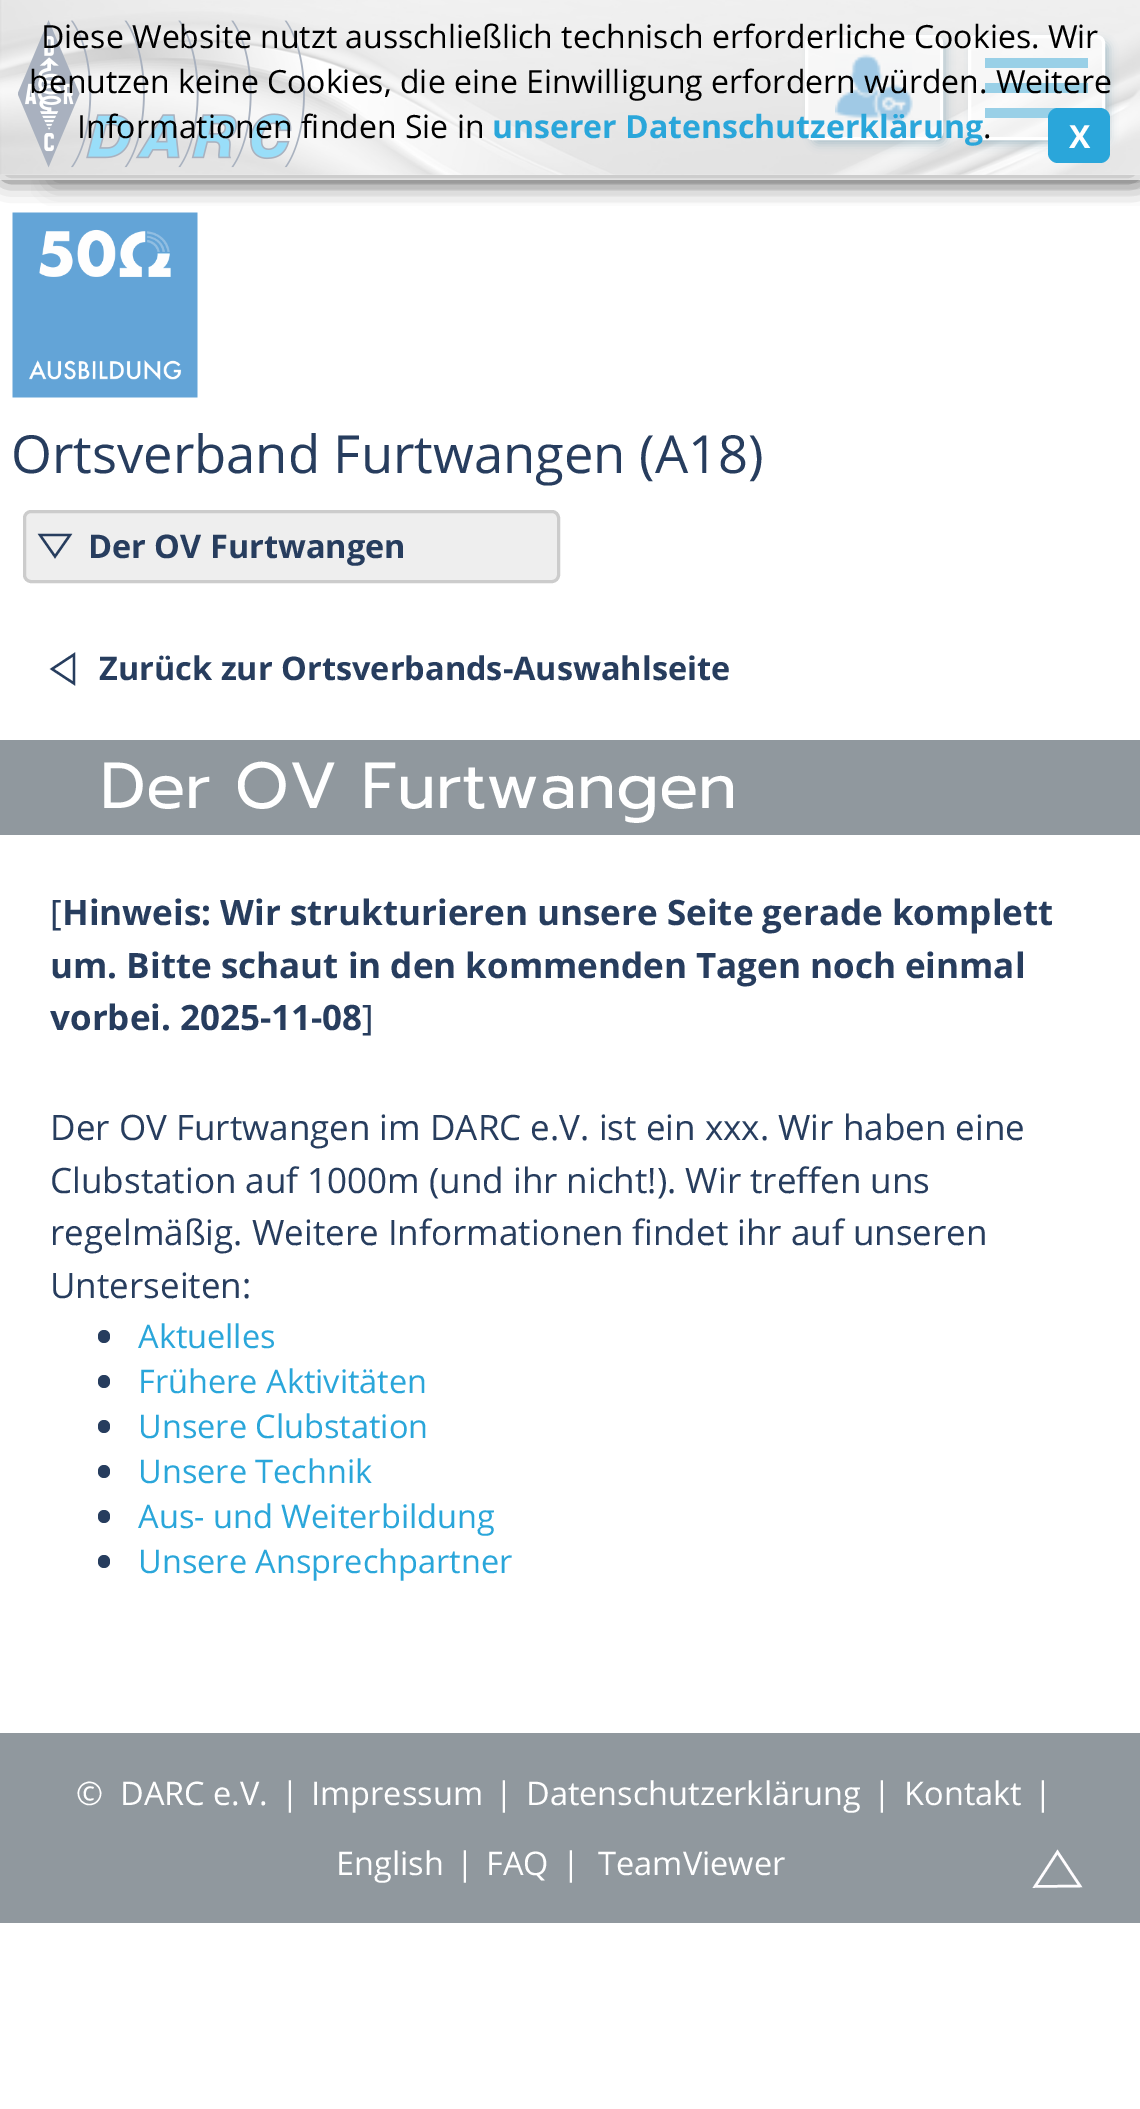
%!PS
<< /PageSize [1140 2109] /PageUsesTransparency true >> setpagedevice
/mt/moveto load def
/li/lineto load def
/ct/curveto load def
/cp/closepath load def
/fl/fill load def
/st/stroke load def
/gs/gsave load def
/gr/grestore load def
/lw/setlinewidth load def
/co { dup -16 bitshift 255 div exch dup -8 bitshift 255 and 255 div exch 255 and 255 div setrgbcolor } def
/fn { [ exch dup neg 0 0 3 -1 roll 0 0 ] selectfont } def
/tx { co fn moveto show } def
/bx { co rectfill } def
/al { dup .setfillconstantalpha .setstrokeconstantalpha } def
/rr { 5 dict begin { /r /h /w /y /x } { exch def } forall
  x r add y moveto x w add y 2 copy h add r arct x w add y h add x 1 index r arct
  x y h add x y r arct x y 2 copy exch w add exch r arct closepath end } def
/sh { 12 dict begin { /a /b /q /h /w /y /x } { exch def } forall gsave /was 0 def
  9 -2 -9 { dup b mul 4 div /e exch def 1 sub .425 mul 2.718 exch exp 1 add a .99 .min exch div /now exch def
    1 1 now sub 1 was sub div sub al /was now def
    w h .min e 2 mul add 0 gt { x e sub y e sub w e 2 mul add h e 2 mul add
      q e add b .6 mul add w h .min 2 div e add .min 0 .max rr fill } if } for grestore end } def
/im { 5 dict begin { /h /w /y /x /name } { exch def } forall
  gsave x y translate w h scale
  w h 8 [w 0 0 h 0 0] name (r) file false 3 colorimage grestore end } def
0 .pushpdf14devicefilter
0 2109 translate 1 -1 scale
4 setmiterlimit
0 0 1140 2109 16#FFFFFF bx
(media/4.raw) 12 212 186 186 im
16#000000 co
5 10 1130 165 0 12.5 1 sh
(media/1.raw) 0 0 1140 175 im
(media/2.raw) 18 20 287 148 im
gs
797 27 mt 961 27 li 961 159 li 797 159 li cp 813 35 mt 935 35 li 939.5 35 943 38.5 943 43 ct 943 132 li 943 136.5 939.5 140 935 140 ct 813 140 li 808.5 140 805 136.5 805 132 ct 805 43 li 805 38.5 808.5 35 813 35 ct cp eoclip newpath
16#1B5771 co
813 43 132 100 5 5 1 sh
gr
0.6 al
16#FFFFFF co
805 35 138 105 8 rr fl
1 al
(media/3.raw) 835 54 78 70 im
3 lw
806.5 36.5 135 102 6.5 rr st
gs
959 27 mt 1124 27 li 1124 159 li 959 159 li cp 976 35 mt 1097 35 li 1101.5 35 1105 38.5 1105 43 ct 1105 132 li 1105 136.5 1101.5 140 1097 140 ct 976 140 li 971.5 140 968 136.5 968 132 ct 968 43 li 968 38.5 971.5 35 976 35 ct cp eoclip newpath
16#1B5771 co
975 43 133 100 5 5 1 sh
gr
0.6 al
969.5 36.5 134 102 6.5 rr fl
1 al
969.5 36.5 134 102 6.5 rr st
985 58 103 10 16#008AC3 bx
985 83 103 10 16#008AC3 bx
985 108 73 10 16#008AC3 bx
gs
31 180 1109 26 rectclip
16#808080 co
53 50 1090 130 0 12.5 1 sh
gr
0.6 al
0 0 1140 180 16#FFFFFF bx
1 al
16#2AA6DA co
1048 108 62 55 10 rr fl
16#EEEEEE co
24.5 511.5 534 70 6.5 rr gs fl gr
16#CCCCCC co
st
16#273D5E co
2.3 lw
40 535 mt 70 535 li 55 556.5 li cp st
52 669 mt 74 654.5 li 74 683.5 li cp st
0 740 1140 95 16#90989E bx
16#273D5E co
98 1330 12 13 6 rr fl
98 1375 12 13 6 rr fl
98 1420 12 13 6 rr fl
98 1465 12 13 6 rr fl
98 1510 12 13 6 rr fl
98 1555 12 13 6 rr fl
0 1733 1140 190 16#90989E bx
16#FFFDFF co
2.5 lw
1035 1886.5 mt 1080 1886 li 1057.5 1852 li cp st
(Diese Website nutzt ausschließlich technisch erforderliche Cookies. Wir) 41 48 /OpenSans-Regular 32 16#000000 tx
(benutzen keine Cookies, die eine Einwilligung erfordern würden. Weitere) 29 93 /OpenSans-Regular 32 16#000000 tx
(Informationen finden Sie in) 77 138 /OpenSans-Regular 32 16#000000 tx
(unserer Datenschutzerklärung) 492 138 /OpenSans-Bold 32 16#2AA6DA tx
(.) 983 138 /OpenSans-Regular 32 16#000000 tx
(X) 1069 148 /OpenSans-Bold 32 16#FFFFFF tx
(Ortsverband Furtwangen \(A18\)) 11 473 /OpenSans-Regular 52.5 16#273D5E tx
(Der OV Furtwangen) 88 558 /OpenSans-Bold 32.5 16#273D5E tx
(Zurück zur Ortsverbands-Auswahlseite) 99 680 /OpenSans-Bold 32.5 16#273D5E tx
(Der OV Furtwangen) 100 808 /Prompt-Regular 65 16#FFFFFF tx
([) 50 925 /OpenSans-Regular 35 16#273D5E tx
(Hinweis: Wir strukturieren unsere Seite gerade komplett) 62 925 /OpenSans-Bold 35 16#273D5E tx
(um. Bitte schaut in den kommenden Tagen noch einmal) 50 978 /OpenSans-Bold 35 16#273D5E tx
(vorbei. 2025-11-08) 50 1030 /OpenSans-Bold 35 16#273D5E tx
(]) 362 1030 /OpenSans-Regular 35 16#273D5E tx
(Der OV Furtwangen im DARC e.V. ist ein xxx. Wir haben eine) 50 1140 /OpenSans-Regular 35 16#273D5E tx
(Clubstation auf 1000m \(und ihr nicht!\). Wir treffen uns) 50 1193 /OpenSans-Regular 35 16#273D5E tx
(regelmäßig. Weitere Informationen findet ihr auf unseren) 50 1245 /OpenSans-Regular 35 16#273D5E tx
(Unterseiten:) 50 1298 /OpenSans-Regular 35 16#273D5E tx
(Aktuelles) 138 1348 /OpenSans-Regular 32.5 16#2AA6DA tx
(Frühere Aktivitäten) 138 1393 /OpenSans-Regular 32.5 16#2AA6DA tx
(Unsere Clubstation) 138 1438 /OpenSans-Regular 32.5 16#2AA6DA tx
(Unsere Technik) 138 1483 /OpenSans-Regular 32.5 16#2AA6DA tx
(Aus- und Weiterbildung) 138 1528 /OpenSans-Regular 32.5 16#2AA6DA tx
(Unsere Ansprechpartner) 138 1573 /OpenSans-Regular 32.5 16#2AA6DA tx
(©  DARC e.V.) 76 1805 /OpenSans-Regular 32.5 16#FFFFFF tx
(|) 281 1805 /OpenSans-Regular 32.5 16#FFFFFF tx
(Impressum) 311 1805 /OpenSans-Regular 32.5 16#FFFFFF tx
(|) 495 1805 /OpenSans-Regular 32.5 16#FFFFFF tx
(Datenschutzerklärung) 526 1805 /OpenSans-Regular 32.5 16#FFFFFF tx
(|) 873 1805 /OpenSans-Regular 32.5 16#FFFFFF tx
(Kontakt) 904 1805 /OpenSans-Regular 32.5 16#FFFFFF tx
(|) 1034 1805 /OpenSans-Regular 32.5 16#FFFFFF tx
(English) 336 1875 /OpenSans-Regular 32.5 16#FFFFFF tx
(|) 456 1875 /OpenSans-Regular 32.5 16#FFFFFF tx
(FAQ) 486 1875 /OpenSans-Regular 32.5 16#FFFFFF tx
(|) 562 1875 /OpenSans-Regular 32.5 16#FFFFFF tx
(TeamViewer) 598 1875 /OpenSans-Regular 32.5 16#FFFFFF tx
.poppdf14devicefilter showpage
